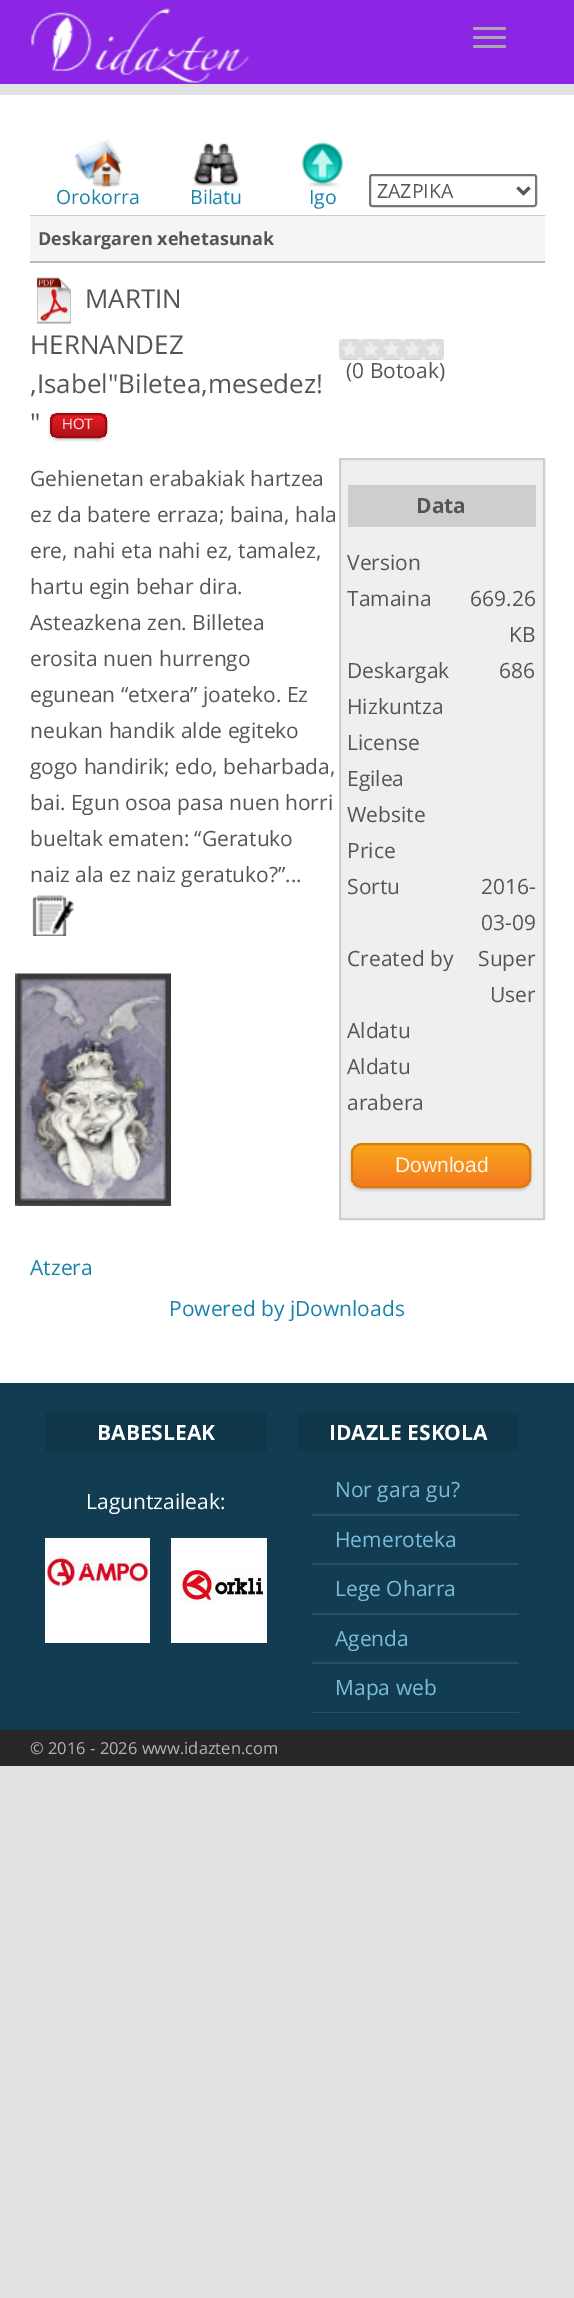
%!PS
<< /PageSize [574 2298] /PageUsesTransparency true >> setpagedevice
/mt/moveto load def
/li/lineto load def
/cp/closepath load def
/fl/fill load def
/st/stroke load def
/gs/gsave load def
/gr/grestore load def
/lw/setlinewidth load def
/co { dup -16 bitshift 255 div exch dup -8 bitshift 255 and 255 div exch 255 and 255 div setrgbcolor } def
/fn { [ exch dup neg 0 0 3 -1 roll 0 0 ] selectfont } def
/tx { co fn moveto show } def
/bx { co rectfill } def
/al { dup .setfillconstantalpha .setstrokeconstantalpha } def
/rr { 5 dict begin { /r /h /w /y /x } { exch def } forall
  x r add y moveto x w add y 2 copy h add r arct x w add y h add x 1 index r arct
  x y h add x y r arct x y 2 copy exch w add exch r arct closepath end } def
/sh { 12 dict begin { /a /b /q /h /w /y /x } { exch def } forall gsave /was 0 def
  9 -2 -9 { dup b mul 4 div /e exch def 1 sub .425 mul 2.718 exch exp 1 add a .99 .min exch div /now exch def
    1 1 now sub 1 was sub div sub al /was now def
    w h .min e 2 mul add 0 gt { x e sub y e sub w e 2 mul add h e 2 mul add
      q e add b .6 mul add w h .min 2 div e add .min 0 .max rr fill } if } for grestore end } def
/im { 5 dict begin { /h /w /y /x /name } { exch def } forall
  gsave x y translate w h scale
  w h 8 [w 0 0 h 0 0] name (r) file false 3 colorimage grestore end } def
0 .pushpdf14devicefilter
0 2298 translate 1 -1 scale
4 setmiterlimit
0 0 574 2298 16#E2E2E2 bx
0 0 574 84 16#8C26E4 bx
(media/1.raw) 31 8 218 75 im
16#A9A9A9 co
473 27 33 3 1.5 rr fl
473 36 33 3 1.5 rr fl
473 45 33 3 1.5 rr fl
0 95 574 1288 16#FFFFFF bx
30 215 515 1 16#CCCCCC bx
(media/2.raw) 74 139 48 49 im
(media/3.raw) 193 143 47 44 im
(media/4.raw) 302 142 41 45 im
16#767676 co
2 lw
370 175 166 31 2 rr st
16#555555 co
3 lw
517.5 187.5 mt 523.5 193.5 li 529.5 187.5 li st
30 216 515 45 16#F5F5F5 bx
30 261 515 2 16#BBBBBB bx
(media/5.raw) 37 277 34 47 im
16#000000 co
50 414 57 26 8 1.5 .2 sh
gs
50 413 57 25 8 rr clip newpath
gs 50 414 mt 107 414 li 107 437 li 50 437 li cp clip newpath
<< /ShadingType 2 /ColorSpace /DeviceRGB /Coords [78 414 78 437] /Extend [true true] /Function << /FunctionType 2 /Domain [0 1] /C0 [.929 .11 .141] /C1 [.667 .075 .09] /N 1 >> >> shfill gr
gr
16#980C10 co
2 lw
51 414 55 23 7 rr st
(media/6.raw) 339 339 105 21 im
(media/7.raw) 32 895 42 41 im
(media/8.raw) 15 973 156 233 im
16#EFEFEF co
340 459 mt 544 459 li 544 1219 li 340 1219 li cp gs fl gr
16#CECECE co
st
348 485 188 42 16#CECECE bx
16#000000 co
351 1145 180 45 11 1.5 .2 sh
gs
351 1143 180 45 11 rr clip newpath
gs 351 1145 mt 531 1145 li 531 1187 li 351 1187 li cp clip newpath
<< /ShadingType 2 /ColorSpace /DeviceRGB /Coords [441 1145 441 1187] /Extend [true true] /Function << /FunctionType 2 /Domain [0 1] /C0 [.98 .647 .102] /C1 [.957 .478 .125] /N 1 >> >> shfill gr
gr
16#DA7C0C co
352 1144 178 43 10 rr st
0 1383 574 347 16#113C51 bx
45 1413 222 38 16#0F3649 bx
45 1538 105 105 16#FFFFFF bx
(media/9.raw) 45 1557 105 30 im
171 1538 96 105 16#FFFFFF bx
(media/10.raw) 180 1566 85 37 im
297 1413 222 38 16#0F3649 bx
312 1514 207 2 16#295062 bx
312 1563 207 2 16#295062 bx
312 1613 207 2 16#295062 bx
312 1662 207 2 16#295062 bx
312 1712 207 1 16#295062 bx
0 1730 574 36 16#272727 bx
(Orokorra) 56 204 /OpenSans-Regular 19.5 16#1782AC tx
(Bilatu) 190 204 /OpenSans-Regular 19.5 16#1782AC tx
(Igo) 309 204 /OpenSans-Regular 19.5 16#1782AC tx
(ZAZPIKA) 377 198 /OpenSans-Regular 19.5 16#555555 tx
(Deskargaren xehetasunak) 38 245 /OpenSans-Bold 18 16#555555 tx
(MARTIN) 85 308 /OpenSans-Regular 26 16#555555 tx
(HERNANDEZ) 30 354 /OpenSans-Regular 26 16#555555 tx
(,Isabel"Biletea,mesedez!) 30 393 /OpenSans-Regular 26 16#555555 tx
(") 30 432 /OpenSans-Regular 26 16#555555 tx
(HOT) 62 429 /LiberationSans-Regular 15 16#FADDDE tx
(\(0 Botoak\)) 346 378 /OpenSans-Regular 21 16#555555 tx
(Gehienetan erabakiak hartzea) 30 486 /OpenSans-Regular 21 16#555555 tx
(ez da batere erraza; baina, hala) 30 522 /OpenSans-Regular 21 16#555555 tx
(ere, nahi eta nahi ez, tamalez,) 30 558 /OpenSans-Regular 21 16#555555 tx
(hartu egin behar dira.) 30 594 /OpenSans-Regular 21 16#555555 tx
(Asteazkena zen. Billetea) 30 630 /OpenSans-Regular 21 16#555555 tx
(erosita nuen hurrengo) 30 666 /OpenSans-Regular 21 16#555555 tx
(egunean “etxera” joateko. Ez) 30 702 /OpenSans-Regular 21 16#555555 tx
(neukan handik alde egiteko) 30 738 /OpenSans-Regular 21 16#555555 tx
(gogo handirik; edo, beharbada,) 30 774 /OpenSans-Regular 21 16#555555 tx
(bai. Egun osoa pasa nuen horri) 30 810 /OpenSans-Regular 21 16#555555 tx
(bueltak ematen: “Geratuko) 30 846 /OpenSans-Regular 21 16#555555 tx
(naiz ala ez naiz geratuko?”...) 30 882 /OpenSans-Regular 21 16#555555 tx
(Data) 416 513 /OpenSans-Bold 21 16#555555 tx
(Version) 347 570 /OpenSans-Regular 21 16#555555 tx
(Tamaina) 347 606 /OpenSans-Regular 21 16#555555 tx
(669.26) 470 606 /OpenSans-Regular 21 16#555555 tx
(KB) 509 642 /OpenSans-Regular 21 16#555555 tx
(Deskargak) 347 678 /OpenSans-Regular 21 16#555555 tx
(686) 499 678 /OpenSans-Regular 21 16#555555 tx
(Hizkuntza) 347 714 /OpenSans-Regular 21 16#555555 tx
(License) 347 750 /OpenSans-Regular 21 16#555555 tx
(Egilea) 347 786 /OpenSans-Regular 21 16#555555 tx
(Website) 347 822 /OpenSans-Regular 21 16#555555 tx
(Price) 347 858 /OpenSans-Regular 21 16#555555 tx
(Sortu) 347 894 /OpenSans-Regular 21 16#555555 tx
(2016-) 481 894 /OpenSans-Regular 21 16#555555 tx
(03-09) 481 930 /OpenSans-Regular 21 16#555555 tx
(Created by) 347 966 /OpenSans-Regular 21 16#555555 tx
(Super) 478 966 /OpenSans-Regular 21 16#555555 tx
(User) 490 1002 /OpenSans-Regular 21 16#555555 tx
(Aldatu) 347 1038 /OpenSans-Regular 21 16#555555 tx
(Aldatu) 347 1074 /OpenSans-Regular 21 16#555555 tx
(arabera) 347 1110 /OpenSans-Regular 21 16#555555 tx
(Download) 395 1172 /LiberationSans-Regular 21 16#FEF4E9 tx
(Atzera) 30 1275 /OpenSans-Regular 21 16#1782AC tx
(Powered by jDownloads) 169 1316 /OpenSans-Regular 21 16#1782AC tx
(BABESLEAK) 97 1440 /OpenSans-Bold 21 16#FFFFFF tx
(Laguntzaileak:) 86 1509 /OpenSans-Regular 21 16#FFFFFF tx
(IDAZLE ESKOLA) 329 1440 /OpenSans-Bold 21 16#FFFFFF tx
(Nor gara gu?) 335 1497 /OpenSans-Regular 21 16#7DBCDB tx
(Hemeroteka) 335 1547 /OpenSans-Regular 21 16#7DBCDB tx
(Lege Oharra) 335 1596 /OpenSans-Regular 21 16#7DBCDB tx
(Agenda) 335 1646 /OpenSans-Regular 21 16#7DBCDB tx
(Mapa web) 335 1695 /OpenSans-Regular 21 16#7DBCDB tx
(© 2016 - 2026 www.idazten.com) 30 1754 /OpenSans-Regular 16.5 16#B4B4B4 tx
.poppdf14devicefilter showpage
